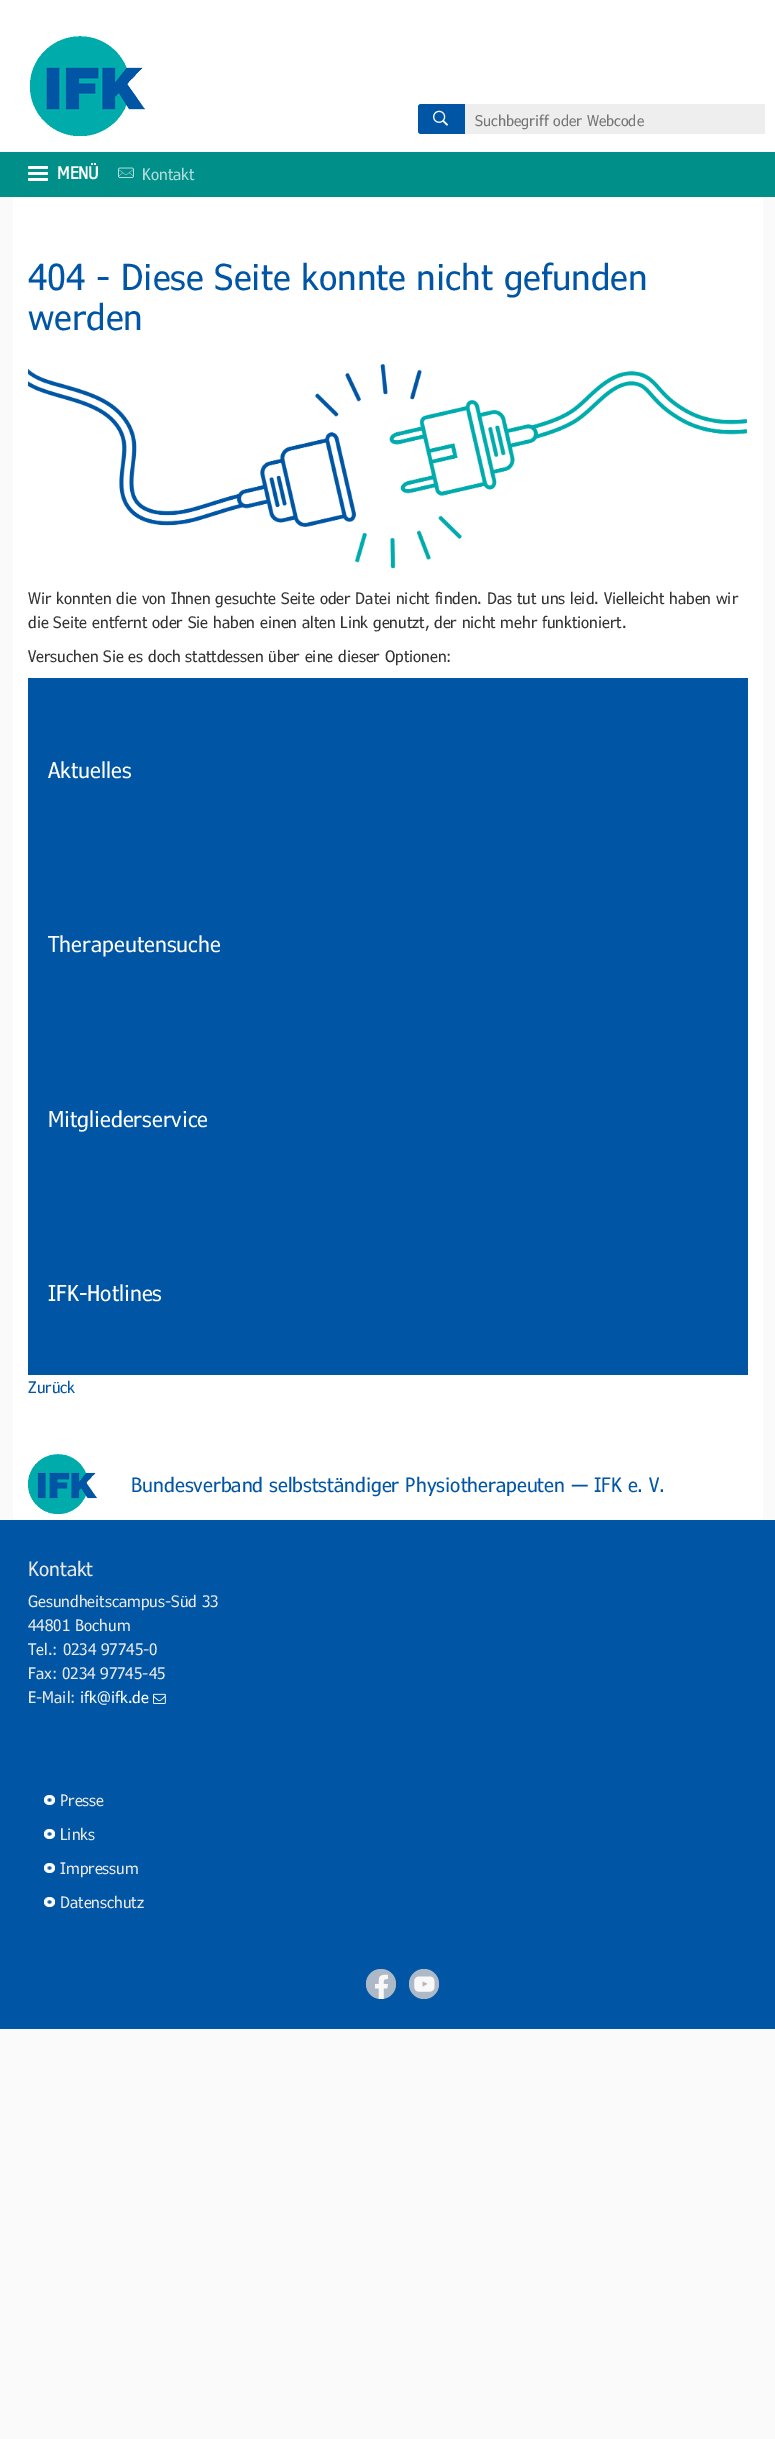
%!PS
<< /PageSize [775 2439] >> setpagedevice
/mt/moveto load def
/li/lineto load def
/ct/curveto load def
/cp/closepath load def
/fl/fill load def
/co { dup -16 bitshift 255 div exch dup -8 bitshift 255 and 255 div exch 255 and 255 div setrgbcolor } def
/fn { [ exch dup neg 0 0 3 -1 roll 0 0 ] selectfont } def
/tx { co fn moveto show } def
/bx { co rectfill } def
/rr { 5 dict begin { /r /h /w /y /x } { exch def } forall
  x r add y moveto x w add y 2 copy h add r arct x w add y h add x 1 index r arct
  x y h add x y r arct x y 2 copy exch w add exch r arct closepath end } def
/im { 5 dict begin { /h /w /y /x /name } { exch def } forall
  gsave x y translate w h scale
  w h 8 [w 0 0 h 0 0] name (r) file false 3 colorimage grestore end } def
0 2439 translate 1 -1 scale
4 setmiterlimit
0 0 775 2439 16#FAFAFA bx
0 0 775 152 16#FFFFFF bx
0 152 775 45 16#008F89 bx
(media/1.raw) 30 36 115 100 im
16#0056A4 co
421 104 mt 465 104 li 465 134 li 421 134 li 419.5 134 418 132.5 418 131 ct 418 107 li 418 105.5 419.5 104 421 104 ct cp fl
(media/2.raw) 433 110 15 16 im
465 104 300 30 16#EEEEEE bx
16#FFFFFF co
28 166 20 3 1.5 rr fl
28 172 20 3 1.5 rr fl
28 178 20 3 1.5 rr fl
(media/3.raw) 118 167 16 11 im
13 197 750 1322 16#FFFFFF bx
(media/4.raw) 28 364 719 205 im
28 678 720 697 16#0056A4 bx
(media/5.raw) 28 1454 69 60 im
0 1520 775 509 16#0056A4 bx
(media/6.raw) 153 1693 13 11 im
(media/7.raw) 44 1795 11 10 im
(media/7.raw) 44 1829 11 10 im
(media/7.raw) 44 1863 11 10 im
(media/7.raw) 44 1897 11 10 im
(media/8.raw) 366 1969 30 30 im
(media/9.raw) 409 1969 30 30 im
(Suchbegriff oder Webcode) 475 126 /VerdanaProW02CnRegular-Regular 15 16#757575 tx
(MENÜ) 57 179 /VerdanaProW02CnRegular-Bold 17 16#FFFFFF tx
(Kontakt) 142 180 /VerdanaProW02CnRegular-Regular 16 16#B3DDDC tx
(404 - Diese Seite konnte nicht gefunden) 28 290 /VerdanaProW02CnRegular-Regular 36 16#0056A4 tx
(werden) 28 330 /VerdanaProW02CnRegular-Regular 36 16#0056A4 tx
(Wir konnten die von Ihnen gesuchte Seite oder Datei nicht finden. Das tut uns leid. Vielleicht haben wir) 28 604 /VerdanaProW02CnRegular-Regular 16 16#333333 tx
(die Seite entfernt oder Sie haben einen alten Link genutzt, der nicht mehr funktioniert.) 28 628 /VerdanaProW02CnRegular-Regular 16 16#333333 tx
(Versuchen Sie es doch stattdessen über eine dieser Optionen:) 28 662 /VerdanaProW02CnRegular-Regular 16 16#333333 tx
(Aktuelles) 48 778 /VerdanaProW02CnRegular-Regular 22 16#FFFFFF tx
(Therapeutensuche) 48 952 /VerdanaProW02CnRegular-Regular 22 16#FFFFFF tx
(Mitgliederservice) 48 1127 /VerdanaProW02CnRegular-Regular 22 16#FFFFFF tx
(IFK-Hotlines) 48 1301 /VerdanaProW02CnRegular-Regular 22 16#FFFFFF tx
(Zurück) 28 1393 /VerdanaProW02CnRegular-Regular 16 16#0056A4 tx
(Bundesverband selbstständiger Physiotherapeuten — IFK e. V.) 131 1492 /VerdanaProW02CnRegular-Regular 20 16#0056A4 tx
(Kontakt) 28 1576 /VerdanaProW02CnRegular-Regular 20 16#E9E9E9 tx
(Gesundheitscampus-Süd 33) 28 1607 /VerdanaProW02CnRegular-Regular 16 16#E9E9E9 tx
(44801 Bochum) 28 1631 /VerdanaProW02CnRegular-Regular 16 16#E9E9E9 tx
(Tel.: 0234 97745-0) 28 1655 /VerdanaProW02CnRegular-Regular 16 16#E9E9E9 tx
(Fax: 0234 97745-45) 28 1679 /VerdanaProW02CnRegular-Regular 16 16#E9E9E9 tx
(E-Mail:) 28 1703 /VerdanaProW02CnRegular-Regular 16 16#E9E9E9 tx
(ifk@ifk.de) 80 1703 /VerdanaProW02CnRegular-Regular 16 16#FFFFFF tx
(Presse) 60 1806 /VerdanaProW02CnRegular-Regular 16 16#E9E9E9 tx
(Links) 60 1840 /VerdanaProW02CnRegular-Regular 16 16#E9E9E9 tx
(Impressum) 60 1874 /VerdanaProW02CnRegular-Regular 16 16#E9E9E9 tx
(Datenschutz) 60 1908 /VerdanaProW02CnRegular-Regular 16 16#E9E9E9 tx
showpage
